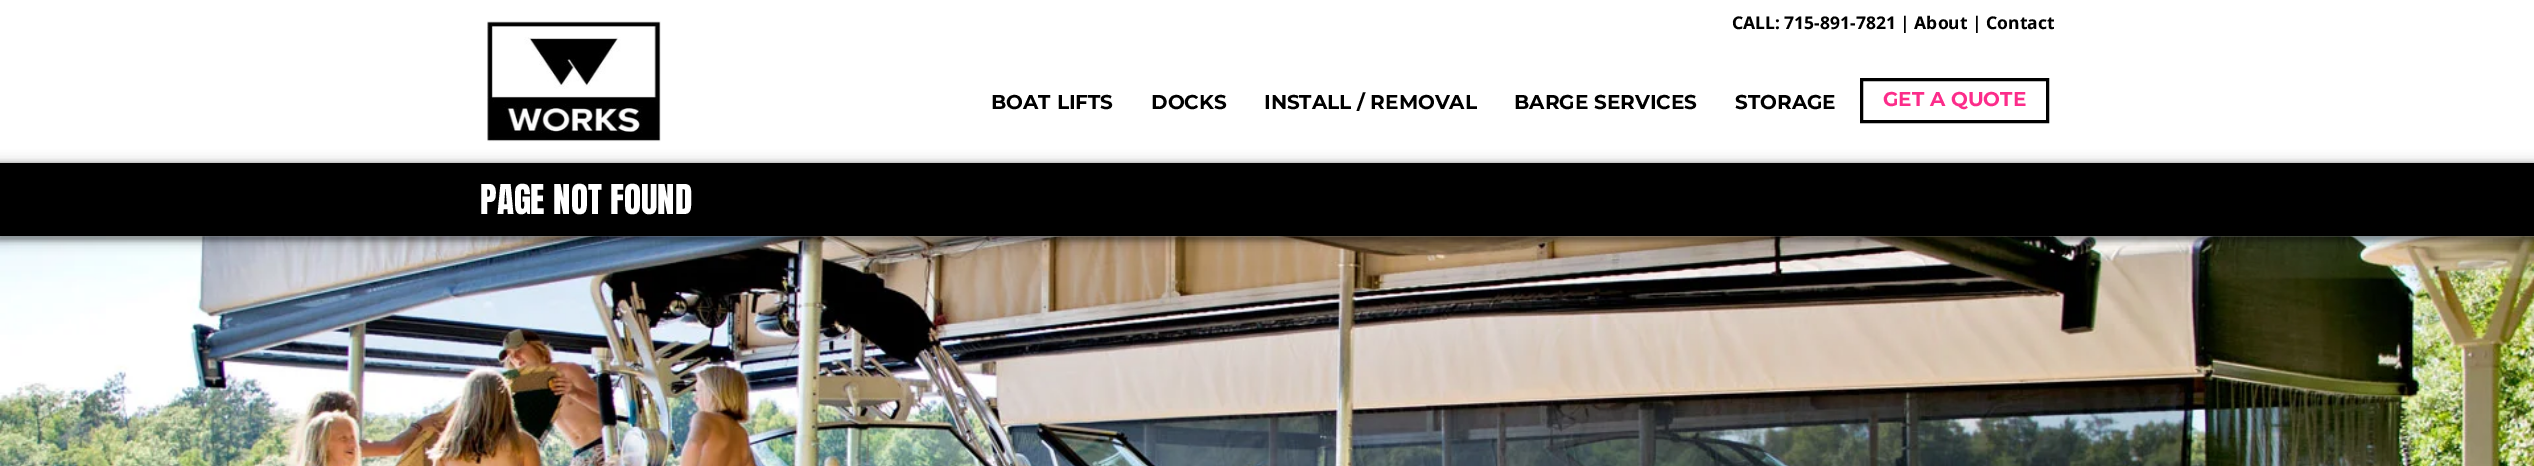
%!PS
<< /PageSize [2534 466] /PageUsesTransparency true >> setpagedevice
/mt/moveto load def
/li/lineto load def
/cp/closepath load def
/gs/gsave load def
/gr/grestore load def
/lw/setlinewidth load def
/co { dup -16 bitshift 255 div exch dup -8 bitshift 255 and 255 div exch 255 and 255 div setrgbcolor } def
/fn { [ exch dup neg 0 0 3 -1 roll 0 0 ] selectfont } def
/tx { co fn moveto show } def
/bx { co rectfill } def
/al { dup .setfillconstantalpha .setstrokeconstantalpha } def
/rr { 5 dict begin { /r /h /w /y /x } { exch def } forall
  x r add y moveto x w add y 2 copy h add r arct x w add y h add x 1 index r arct
  x y h add x y r arct x y 2 copy exch w add exch r arct closepath end } def
/sh { 12 dict begin { /a /b /q /h /w /y /x } { exch def } forall gsave /was 0 def
  9 -2 -9 { dup b mul 4 div /e exch def 1 sub .425 mul 2.718 exch exp 1 add a .99 .min exch div /now exch def
    1 1 now sub 1 was sub div sub al /was now def
    w h .min e 2 mul add 0 gt { x e sub y e sub w e 2 mul add h e 2 mul add
      q e add b .6 mul add w h .min 2 div e add .min 0 .max rr fill } if } for grestore end } def
/im { 5 dict begin { /h /w /y /x /name } { exch def } forall
  gsave x y translate w h scale
  w h 8 [w 0 0 h 0 0] name (r) file false 3 colorimage grestore end } def
0 .pushpdf14devicefilter
0 466 translate 1 -1 scale
4 setmiterlimit
0 0 2534 466 16#FFFFFF bx
(media/1.raw) 487 21 174 121 im
16#000000 co
3 lw
1861.5 79.5 186 42 rectstroke
(media/2.raw) 0 236 2534 230 im
-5 163 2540 78 0 6 .25 sh
0 163 2534 73 16#000000 bx
gs
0 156 mt 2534 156 li 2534 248 li 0 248 li cp 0 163 mt 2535 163 li 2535 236 li 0 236 li cp eoclip newpath
-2 163 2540 78 0 2 .25 sh
gr
(CALL: 715-891-7821 | About | Contact) 1732 29 /NotoSans-Bold 17.5 16#000000 tx
(BOAT LIFTS) 991 109 /Montserrat-Bold 20 16#000000 tx
(DOCKS) 1151 109 /Montserrat-Bold 20 16#000000 tx
(INSTALL / REMOVAL) 1264 109 /Montserrat-Bold 20 16#000000 tx
(BARGE SERVICES) 1514 109 /Montserrat-Bold 20 16#000000 tx
(STORAGE) 1735 109 /Montserrat-Bold 20 16#000000 tx
(GET A QUOTE) 1883 106 /Montserrat-Bold 20 16#FC2C8A tx
(PAGE NOT FOUND) 480 214 /Anton-Regular 35 16#FFFFFF tx
.poppdf14devicefilter showpage
